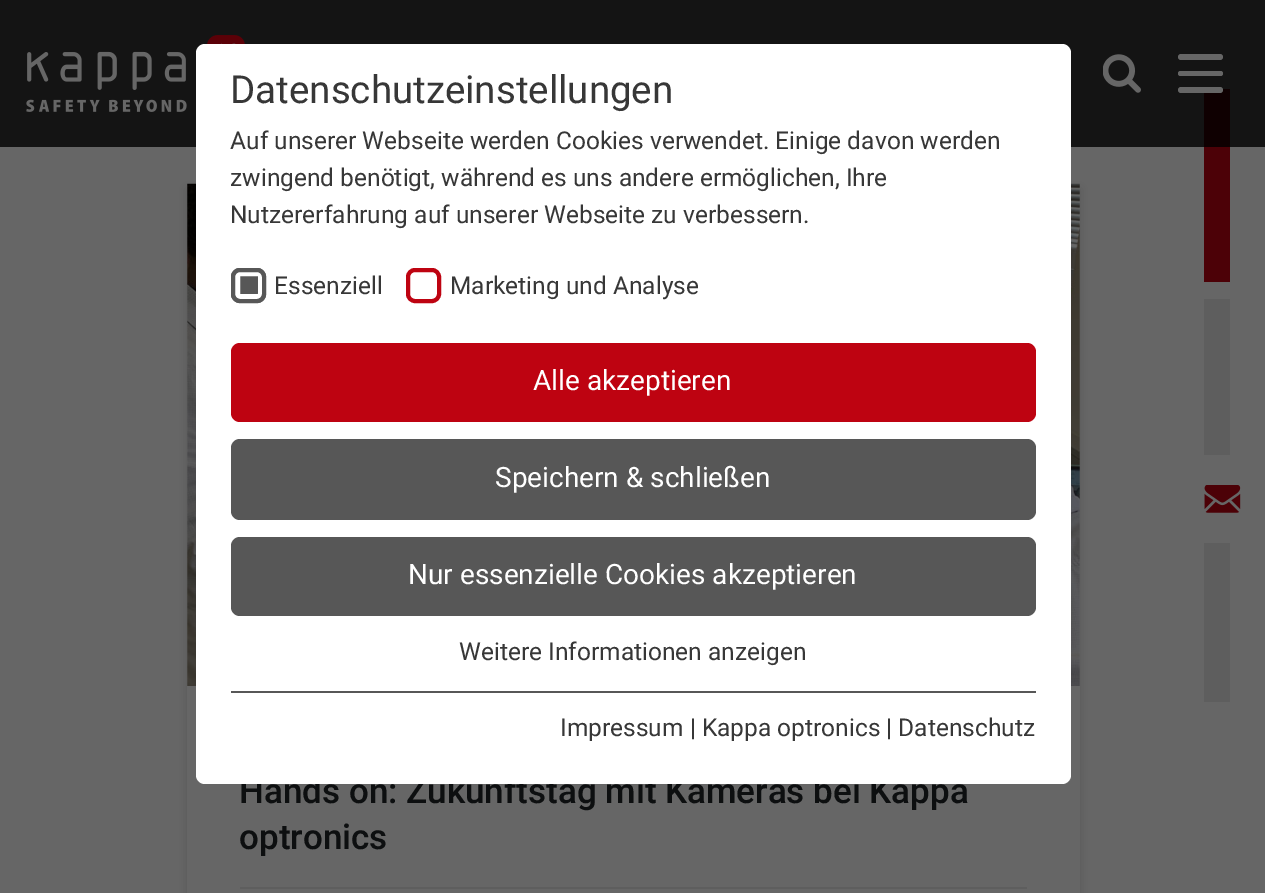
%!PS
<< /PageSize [1265 893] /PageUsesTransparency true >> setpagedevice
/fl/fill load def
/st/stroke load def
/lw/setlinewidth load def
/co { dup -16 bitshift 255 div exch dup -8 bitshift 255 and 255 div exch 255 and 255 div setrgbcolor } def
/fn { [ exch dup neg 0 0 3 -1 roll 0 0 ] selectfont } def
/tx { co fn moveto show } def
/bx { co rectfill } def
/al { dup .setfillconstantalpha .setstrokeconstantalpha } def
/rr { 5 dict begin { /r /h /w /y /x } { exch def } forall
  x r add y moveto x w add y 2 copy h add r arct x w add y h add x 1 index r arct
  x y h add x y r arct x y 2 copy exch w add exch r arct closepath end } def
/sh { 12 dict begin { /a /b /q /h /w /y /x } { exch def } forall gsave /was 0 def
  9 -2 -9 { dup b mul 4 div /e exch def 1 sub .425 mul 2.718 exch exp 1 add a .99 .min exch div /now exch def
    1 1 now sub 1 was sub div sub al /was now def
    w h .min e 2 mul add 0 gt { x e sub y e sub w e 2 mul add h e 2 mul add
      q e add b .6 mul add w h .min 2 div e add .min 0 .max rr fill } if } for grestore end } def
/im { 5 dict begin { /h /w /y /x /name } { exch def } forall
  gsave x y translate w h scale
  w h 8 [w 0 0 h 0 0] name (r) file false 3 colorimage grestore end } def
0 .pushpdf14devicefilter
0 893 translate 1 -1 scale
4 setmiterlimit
0 0 1265 893 16#666666 bx
0 0 1265 147 16#141414 bx
(media/1.raw) 26 35 219 77 im
(media/2.raw) 1103 54 38 39 im
16#666666 co
1178 54 45 6 3 rr fl
1178 71 45 5 2.5 rr fl
1204 89 26 58 16#0F0001 bx
16#666666 co
1178 87 45 6 3 rr fl
1204 147 26 135 16#4C0107 bx
1204 299 26 156 16#5E5E5E bx
1204 543 26 159 16#5E5E5E bx
(media/3.raw) 1204 485 37 28 im
16#000000 co
187 189 893 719 0 5 .16 sh
187 184 893 709 16#666666 bx
(media/4.raw) 187 183 893 503 im
240 887 787 2 16#5E5E5E bx
(Hands on: Zukunftstag mit Kameras bei Kappa) 239 803 /Heebo-Medium 35 16#0D0F10 tx
16#FFFFFF co
196 44 875 740 9 rr fl
16#BE0311 co
4 lw
408 270 31 31 7 rr st
16#575757 co
231 268 35 35 9 rr fl
16#FFFFFF co
5 lw
237.5 273.5 23 23 2.5 rr st
16#575757 co
4 lw
233 270 31 31 7 rr st
(Weitere Informationen anzeigen) 459 660 /Heebo-Regular 24.5 16#373737 tx
16#575757 co
231 537 805 79 9 rr fl
(Nur essenzielle Cookies akzeptieren) 408 584 /Heebo-Regular 28 16#FFFFFF tx
16#575757 co
231 439 805 81 9 rr fl
(Speichern & schließen) 495 487 /Heebo-Regular 28 16#FFFFFF tx
16#BE0311 co
231 343 805 79 9 rr fl
(Alle akzeptieren) 533 390 /Heebo-Regular 28 16#FFFFFF tx
(Marketing und Analyse) 450 294 /Heebo-Regular 24.5 16#373737 tx
(Essenziell) 274 294 /Heebo-Regular 24.5 16#373737 tx
(Nutzererfahrung auf unserer Webseite zu verbessern.) 230 223 /Heebo-Regular 24.5 16#373737 tx
(zwingend benötigt, während es uns andere ermöglichen, Ihre) 230 186 /Heebo-Regular 24.5 16#373737 tx
(Auf unserer Webseite werden Cookies verwendet. Einige davon werden) 230 149 /Heebo-Regular 24.5 16#373737 tx
(Datenschutzeinstellungen) 230 103 /Heebo-Regular 38.5 16#373737 tx
(Impressum | Kappa optronics | Datenschutz) 560 736 /Heebo-Regular 24.5 16#373737 tx
231 691 805 2 16#575757 bx
(optronics) 239 849 /Heebo-Medium 35 16#0D0F10 tx
.poppdf14devicefilter showpage
